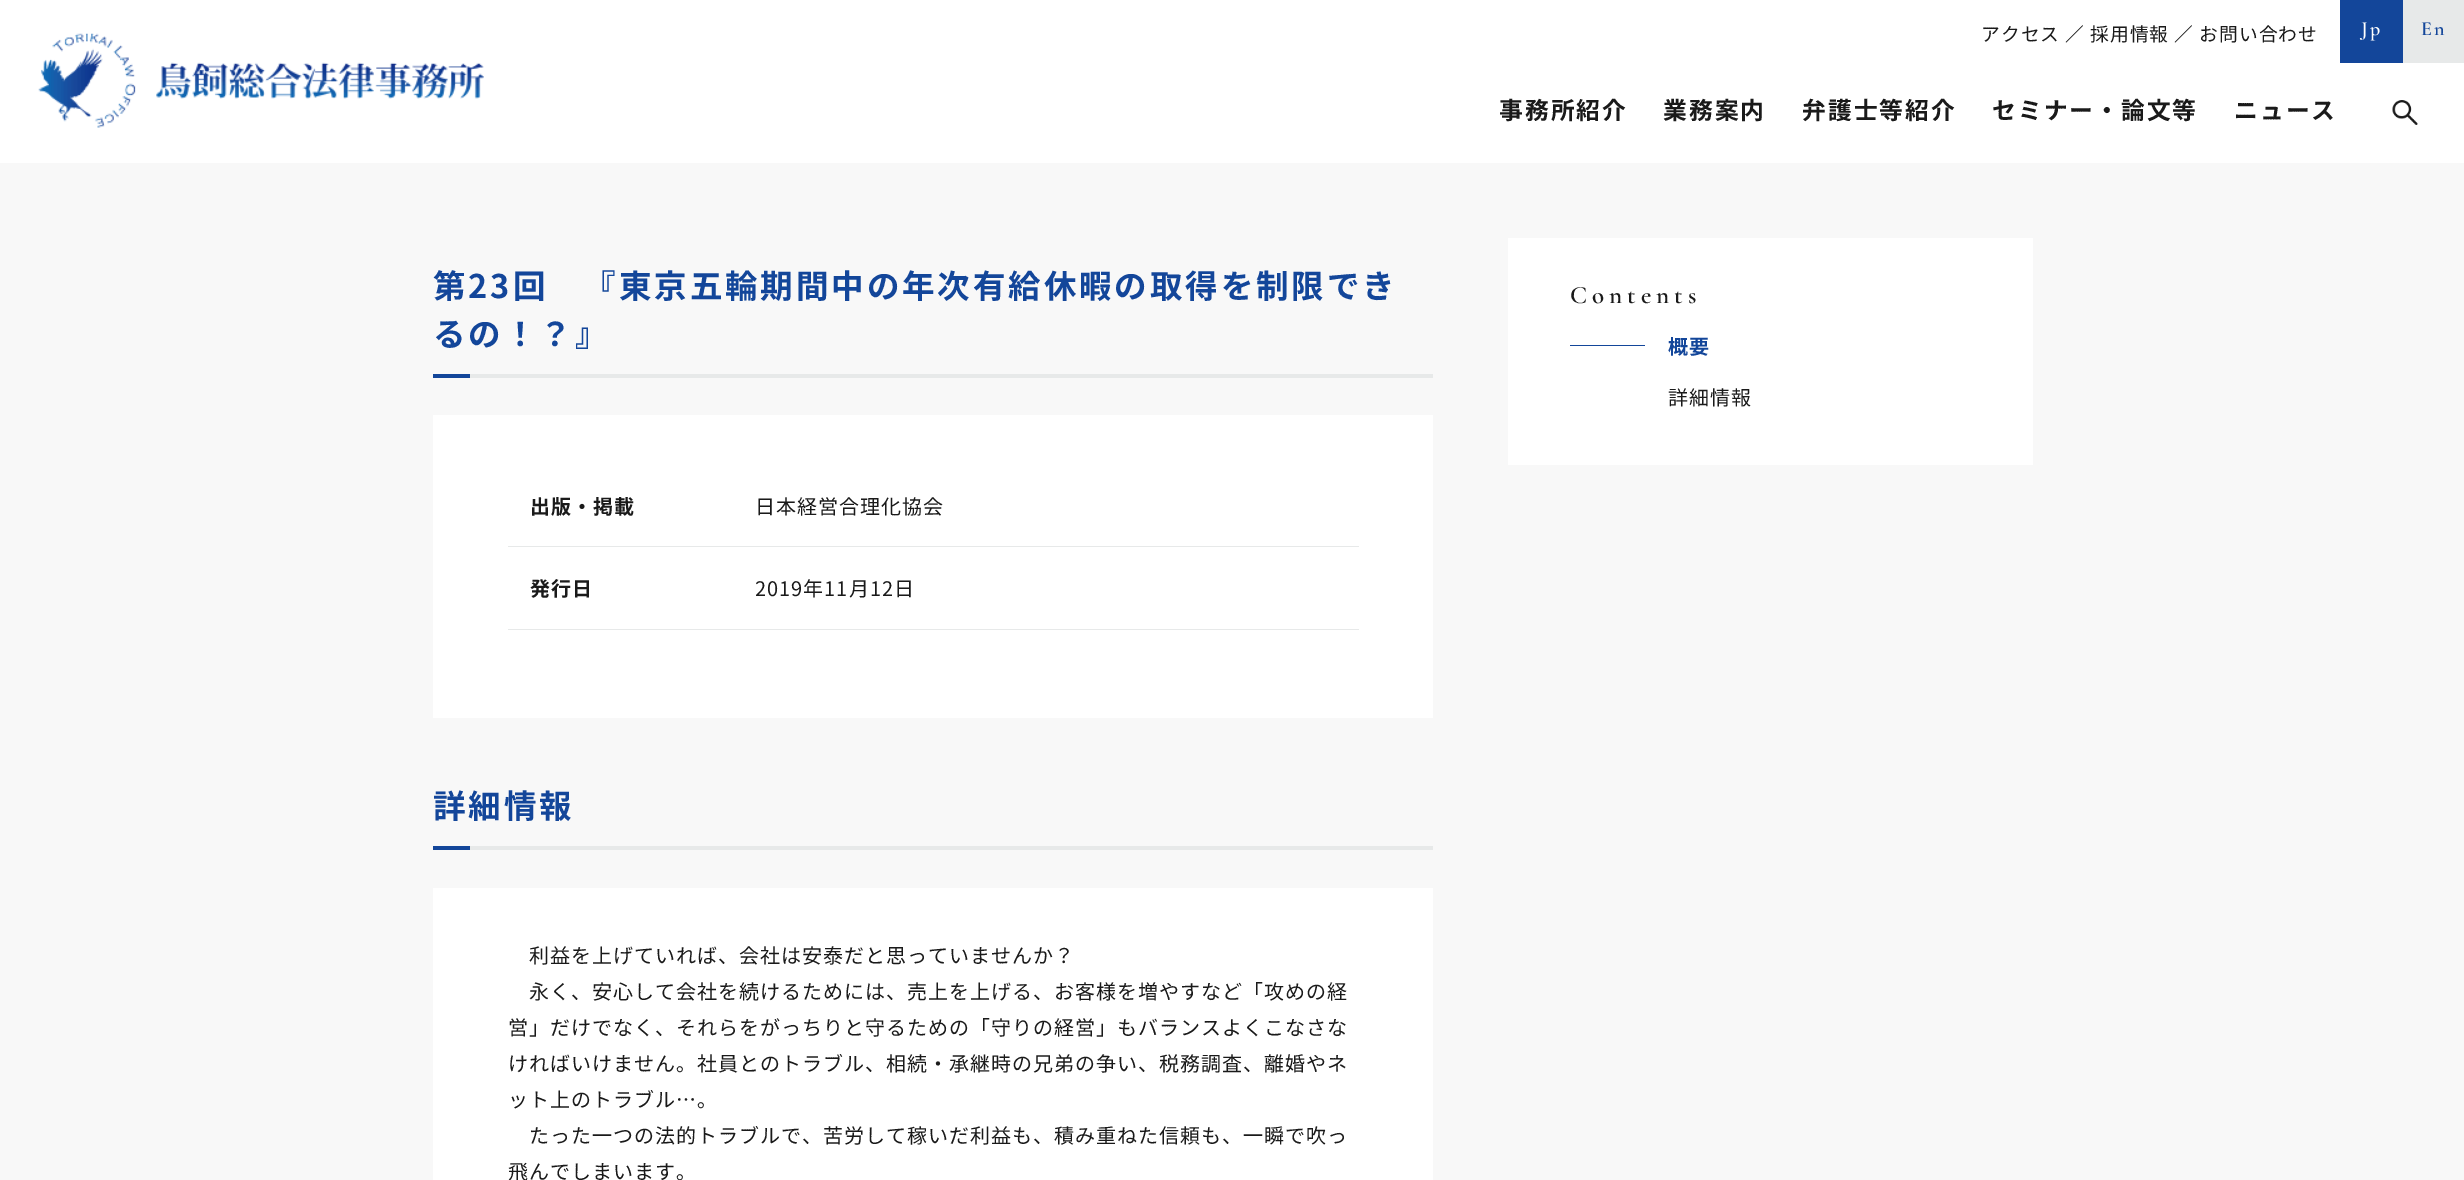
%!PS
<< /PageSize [2464 1180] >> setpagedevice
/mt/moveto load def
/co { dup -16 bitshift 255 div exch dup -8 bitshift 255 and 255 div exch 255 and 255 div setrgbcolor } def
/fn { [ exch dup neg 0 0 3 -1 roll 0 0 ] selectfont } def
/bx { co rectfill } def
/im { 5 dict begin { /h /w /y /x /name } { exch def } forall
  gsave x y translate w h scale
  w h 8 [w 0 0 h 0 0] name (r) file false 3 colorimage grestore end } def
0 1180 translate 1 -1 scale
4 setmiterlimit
0 0 2464 1180 16#F8F8F8 bx
0 0 2464 163 16#FFFFFF bx
(media/1.raw) 38 33 446 95 im
2340 0 63 63 16#13469A bx
2403 0 61 63 16#E7E9E9 bx
(media/2.raw) 2392 100 26 25 im
470 374 963 4 16#E7E9E9 bx
433 374 37 4 16#13469A bx
433 415 1000 303 16#FFFFFF bx
508 546 851 1 16#E7E9E9 bx
508 629 851 1 16#E7E9E9 bx
470 846 963 4 16#E7E9E9 bx
433 846 37 4 16#13469A bx
433 888 1000 292 16#FFFFFF bx
1508 238 525 227 16#FFFFFF bx
1570 345 75 1 16#13469A bx
/NotoSansJP-Regular 18.75 fn
16#1A1A1A co
1981 41 mt 1 0 (アクセス ／ 採用情報 ／ お問い合わせ) ashow
/CormorantGaramond-SemiBold 20 fn
16#FFFFFF co
2361 35 mt 2 0 (Jp) ashow
16#13469A co
2421 35 mt 2 0 (En) ashow
/NotoSansJP-Bold 23.75 fn
16#1A1A1A co
1499 119 mt 2 0 (事務所紹介) ashow
1663 119 mt 2 0 (業務案内) ashow
1802 119 mt 2 0 (弁護士等紹介) ashow
1992 119 mt 2 0 (セミナー・論文等) ashow
2234 119 mt 2 0 (ニュース) ashow
/NotoSansJP-Bold 32.5 fn
16#13469A co
433 298 mt 2.9 0 (第23回　『東京五輪期間中の年次有給休暇の取得を制限でき) ashow
433 346 mt 2.9 0 (るの！？』) ashow
/NotoSansJP-Bold 20 fn
16#1A1A1A co
530 514 mt 1 0 (出版・掲載) ashow
/NotoSansJP-Regular 20 fn
755 514 mt 1 0 (日本経営合理化協会) ashow
/NotoSansJP-Bold 20 fn
530 596 mt 1 0 (発行日) ashow
/NotoSansJP-Regular 20 fn
755 596 mt 1 0 (2019年11月12日) ashow
/NotoSansJP-Bold 32.5 fn
16#13469A co
433 818 mt 2.9 0 (詳細情報) ashow
/NotoSansJP-Regular 20 fn
16#1A1A1A co
529 963 mt 1 0 (利益を上げていれば、会社は安泰だと思っていませんか？) ashow
529 999 mt 1 0 (永く、安心して会社を続けるためには、売上を上げる、お客様を増やすなど「攻めの経) ashow
508 1035 mt 1 0 (営」だけでなく、それらをがっちりと守るための「守りの経営」もバランスよくこなさな) ashow
508 1071 mt 1 0 (ければいけません。社員とのトラブル、相続・承継時の兄弟の争い、税務調査、離婚やネ) ashow
508 1107 mt 1 0 (ット上のトラブル…。) ashow
529 1143 mt 1 0 (たった一つの法的トラブルで、苦労して稼いだ利益も、積み重ねた信頼も、一瞬で吹っ) ashow
508 1179 mt 1 0 (飛んでしまいます。) ashow
/CormorantGaramond-SemiBold 25 fn
1570 303 mt 5 0 (Contents) ashow
/NotoSansJP-Bold 20 fn
16#13469A co
1668 354 mt 1 0 (概要) ashow
/NotoSansJP-Regular 20 fn
16#1A1A1A co
1668 405 mt 1 0 (詳細情報) ashow
showpage
